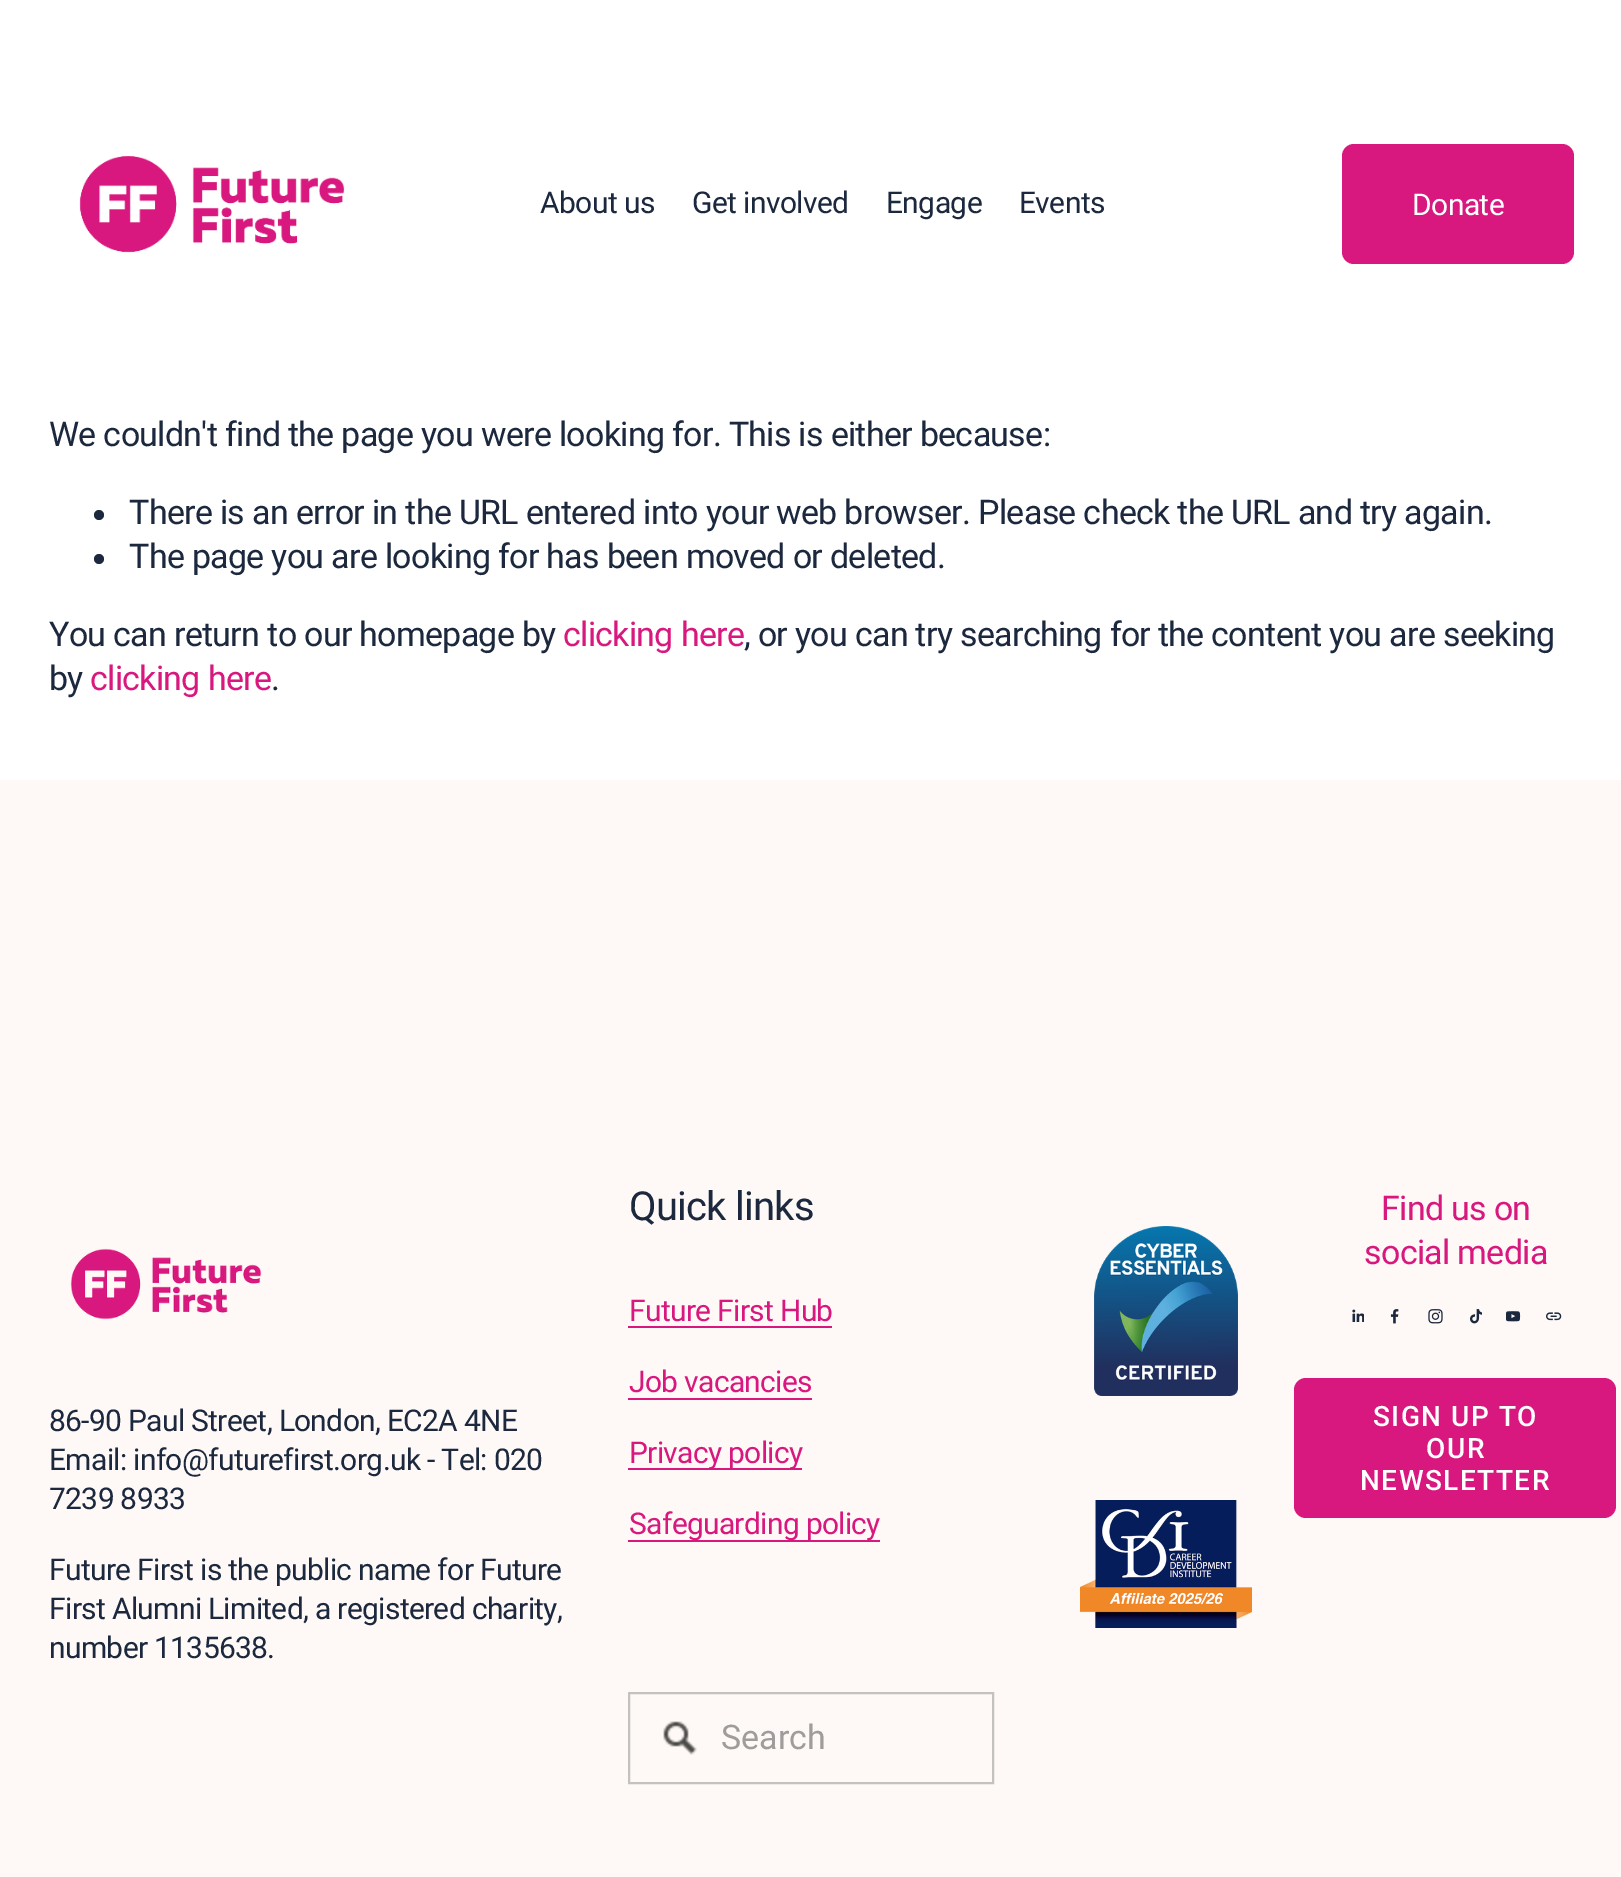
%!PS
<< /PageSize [1621 1877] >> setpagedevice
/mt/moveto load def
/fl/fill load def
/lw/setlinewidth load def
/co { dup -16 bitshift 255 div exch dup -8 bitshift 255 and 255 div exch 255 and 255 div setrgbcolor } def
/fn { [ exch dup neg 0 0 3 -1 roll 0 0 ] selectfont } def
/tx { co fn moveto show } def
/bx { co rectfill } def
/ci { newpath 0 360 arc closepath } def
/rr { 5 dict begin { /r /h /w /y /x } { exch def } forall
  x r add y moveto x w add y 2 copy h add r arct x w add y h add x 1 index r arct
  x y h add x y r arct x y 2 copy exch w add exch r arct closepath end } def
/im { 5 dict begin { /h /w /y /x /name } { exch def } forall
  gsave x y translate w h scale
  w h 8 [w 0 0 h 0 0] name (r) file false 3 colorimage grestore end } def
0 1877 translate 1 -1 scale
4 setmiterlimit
0 0 1621 1877 16#FFFFFF bx
(media/1.raw) 79 156 266 97 im
16#D8187E co
1342 144 232 120 12 rr fl
16#1B283E co
99 515 5 ci fl
99 559 5 ci fl
0 780 1621 1097 16#FEF9F6 bx
(media/2.raw) 70 1248 192 72 im
628 1326 204 2 16#D8187E bx
628 1398 184 2 16#D8187E bx
628 1468 174 2 16#D8187E bx
628 1540 252 2 16#D8187E bx
(media/3.raw) 1094 1226 144 170 im
(media/4.raw) 1352 1309 12 13 im
(media/5.raw) 1390 1309 9 15 im
(media/6.raw) 1428 1309 15 15 im
(media/7.raw) 1470 1309 12 15 im
(media/8.raw) 1506 1311 15 11 im
(media/9.raw) 1546 1312 16 9 im
(media/10.raw) 1080 1500 172 128 im
1294 1378 322 140 12 rr fl
(media/11.raw) 663 1721 34 34 im
16#C3C2C1 co
2 lw
629 1693 364 90 rectstroke
/Roboto-Regular 30 fn
16#1B283E co
540 213 mt -.6 0 (About us) ashow
692 213 mt -.6 0 (Get involved) ashow
886 213 mt -.6 0 (Engage) ashow
1019 213 mt -.6 0 (Events) ashow
16#FFFFFF co
1412 215 mt -.6 0 (Donate) ashow
/Roboto-Regular 33.95 fn
16#1B283E co
49 446 mt -.68 0 (We couldn't find the page you were looking for. This is either because:) ashow
129 524 mt -.68 0 (There is an error in the URL entered into your web browser. Please check the URL and try again.) ashow
129 568 mt -.68 0 (The page you are looking for has been moved or deleted.) ashow
49 646 mt -.68 0 (You can return to our homepage by) ashow
16#D8187E co
563 646 mt -.68 0 (clicking here) ashow
16#1B283E co
744 646 mt -.68 0 (, or you can try searching for the content you are seeking) ashow
49 690 mt -.68 0 (by) ashow
16#D8187E co
90 690 mt -.68 0 (clicking here) ashow
16#1B283E co
271 690 mt -.68 0 (.) ashow
/Roboto-Regular 40 fn
629 1220 mt -.75 0 (Quick links) ashow
/Roboto-Regular 30 fn
16#D8187E co
629 1321 mt -.68 0 (Future First Hub) ashow
629 1392 mt -.68 0 (Job vacancies) ashow
629 1463 mt -.68 0 (Privacy policy) ashow
629 1534 mt -.68 0 (Safeguarding policy) ashow
/Roboto-Regular 33.95 fn
1381 1220 mt -.68 0 (Find us on) ashow
1364 1264 mt -.68 0 (social media) ashow
/Roboto-Regular 30 fn
16#1B283E co
49 1431 mt -.68 0 (86-90 Paul Street, London, EC2A 4NE) ashow
49 1470 mt -.68 0 (Email: info@futurefirst.org.uk - Tel: 020) ashow
49 1509 mt -.68 0 (7239 8933) ashow
49 1580 mt -.68 0 (Future First is the public name for Future) ashow
49 1619 mt -.68 0 (First Alumni Limited, a registered charity,) ashow
49 1658 mt -.68 0 (number 1135638.) ashow
/Roboto-Medium 28 fn
16#FFFFFF co
1373 1426 mt 1.5 0 (SIGN UP TO) ashow
1426 1458 mt 1.5 0 (OUR) ashow
1360 1490 mt 1.5 0 (NEWSLETTER) ashow
(Search) 721 1749 /Roboto-Regular 33.95 16#9E9D9C tx
showpage
